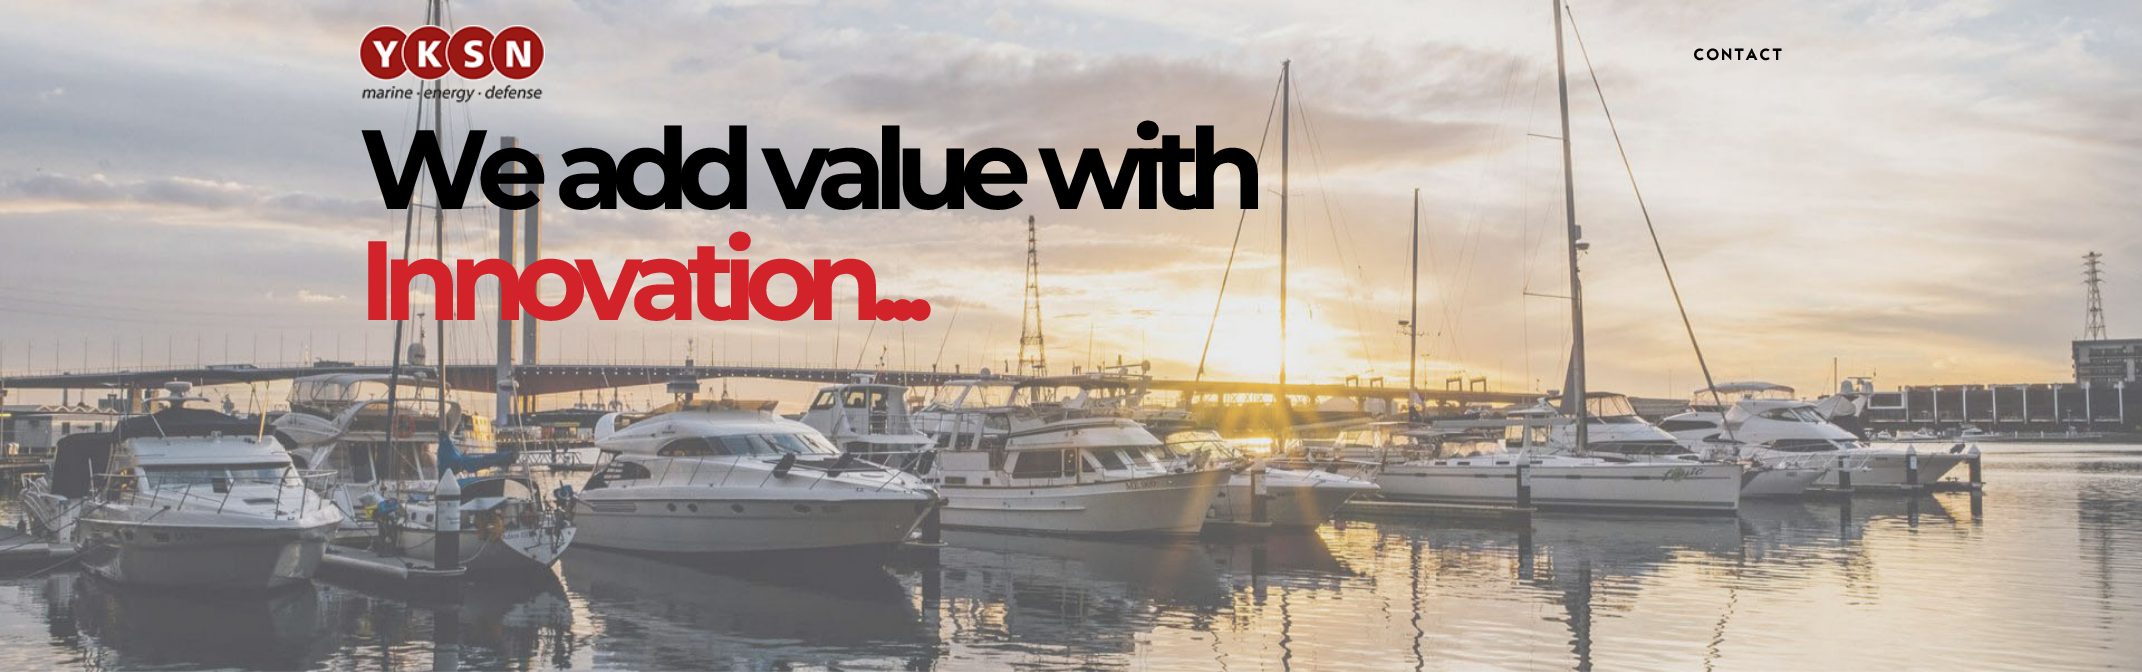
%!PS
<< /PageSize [2142 672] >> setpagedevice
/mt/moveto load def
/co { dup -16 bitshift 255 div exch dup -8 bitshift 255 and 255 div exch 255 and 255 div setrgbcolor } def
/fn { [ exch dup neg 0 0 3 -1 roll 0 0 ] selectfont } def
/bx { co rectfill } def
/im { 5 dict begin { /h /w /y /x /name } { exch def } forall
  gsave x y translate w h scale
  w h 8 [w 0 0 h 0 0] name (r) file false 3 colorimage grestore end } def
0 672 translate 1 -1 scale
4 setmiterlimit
0 0 2142 672 16#FFFFFF bx
(media/2.raw) 0 0 2142 672 im
(media/1.raw) 358 25 187 78 im
/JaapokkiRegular-Regular 16.25 fn
16#000000 co
1693 60 mt 1.25 0 (CONTACT) ashow
/Montserrat-Bold 112.5 fn
359 209 mt -12.5 0 (We add value with) ashow
16#D2232A co
359 320 mt -12.5 0 (Innovation...) ashow
showpage
